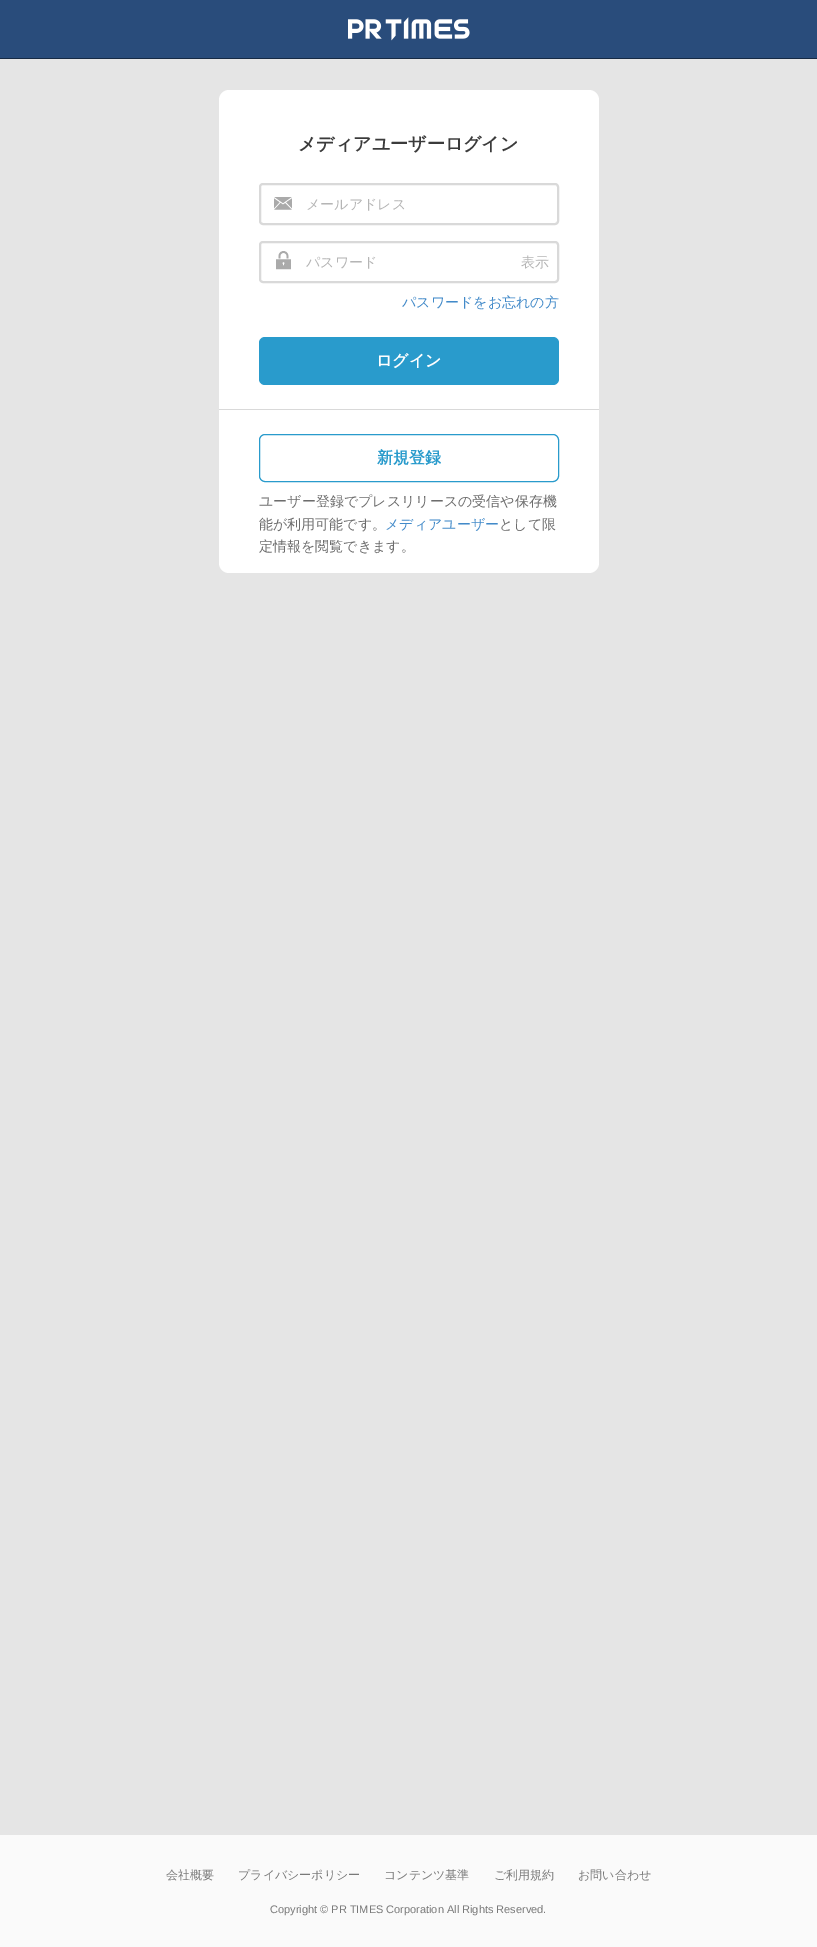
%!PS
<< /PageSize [817 1947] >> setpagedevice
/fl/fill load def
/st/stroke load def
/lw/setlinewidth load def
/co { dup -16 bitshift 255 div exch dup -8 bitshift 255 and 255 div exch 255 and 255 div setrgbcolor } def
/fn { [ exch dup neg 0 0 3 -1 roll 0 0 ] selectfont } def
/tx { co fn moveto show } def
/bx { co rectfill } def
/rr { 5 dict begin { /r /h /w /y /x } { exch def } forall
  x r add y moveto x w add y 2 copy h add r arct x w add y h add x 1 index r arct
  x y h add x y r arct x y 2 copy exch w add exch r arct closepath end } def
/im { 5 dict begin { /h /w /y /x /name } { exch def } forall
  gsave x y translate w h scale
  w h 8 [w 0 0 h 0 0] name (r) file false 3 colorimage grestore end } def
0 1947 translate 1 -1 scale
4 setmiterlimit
0 0 817 1947 16#FAFAFA bx
0 0 817 58 16#294C7B bx
0 58 817 1 16#162A44 bx
(media/1.raw) 348 17 122 24 im
0 59 817 1776 16#E5E5E5 bx
16#FFFFFF co
219 90 380 483 10 rr fl
16#D9D9D9 co
2 lw
260 184 298 40 3 rr st
(media/2.raw) 274 197 18 13 im
260 242 298 40 3 rr st
(media/3.raw) 276 251 15 19 im
16#299BCC co
259 337 300 48 6 rr fl
219 409 380 1 16#D9D9D9 bx
16#299BCC co
1 lw
259.5 434.5 299 47 5.5 rr st
(メディアユーザーログイン) 298 150 /WenQuanYiZenHei-Bold 18 16#3B3B3B tx
(メールアドレス) 306 209 /WenQuanYiZenHei-Medium 14 16#B5B5B5 tx
(パスワード) 306 267 /WenQuanYiZenHei-Medium 14 16#B5B5B5 tx
(表示) 521 267 /WenQuanYiZenHei-Medium 14 16#B5B5B5 tx
(パスワードをお忘れの方) 402 307 /WenQuanYiZenHei-Medium 14 16#428AC9 tx
(ログイン) 376 366 /WenQuanYiZenHei-Bold 16 16#FFFFFF tx
(新規登録) 377 463 /WenQuanYiZenHei-Bold 16 16#299BCC tx
(ユーザー登録でプレスリリースの受信や保存機) 259 506 /WenQuanYiZenHei-Medium 14 16#6D6D6D tx
(能が利用可能です。) 259 529 /WenQuanYiZenHei-Medium 14 16#6D6D6D tx
(メディアユーザー) 385 529 /WenQuanYiZenHei-Medium 14 16#428AC9 tx
(として限) 499 529 /WenQuanYiZenHei-Medium 14 16#6D6D6D tx
(定情報を閲覧できます。) 259 551 /WenQuanYiZenHei-Medium 14 16#6D6D6D tx
(会社概要) 166 1879 /WenQuanYiZenHei-Medium 12 16#797979 tx
(プライバシーポリシー) 238 1879 /WenQuanYiZenHei-Medium 12 16#797979 tx
(コンテンツ基準) 384 1879 /WenQuanYiZenHei-Medium 12 16#797979 tx
(ご利用規約) 494 1879 /WenQuanYiZenHei-Medium 12 16#797979 tx
(お問い合わせ) 578 1879 /WenQuanYiZenHei-Medium 12 16#797979 tx
(Copyright © PR TIMES Corporation All Rights Reserved.) 270 1913 /LiberationSans-Regular 11 16#797979 tx
showpage
